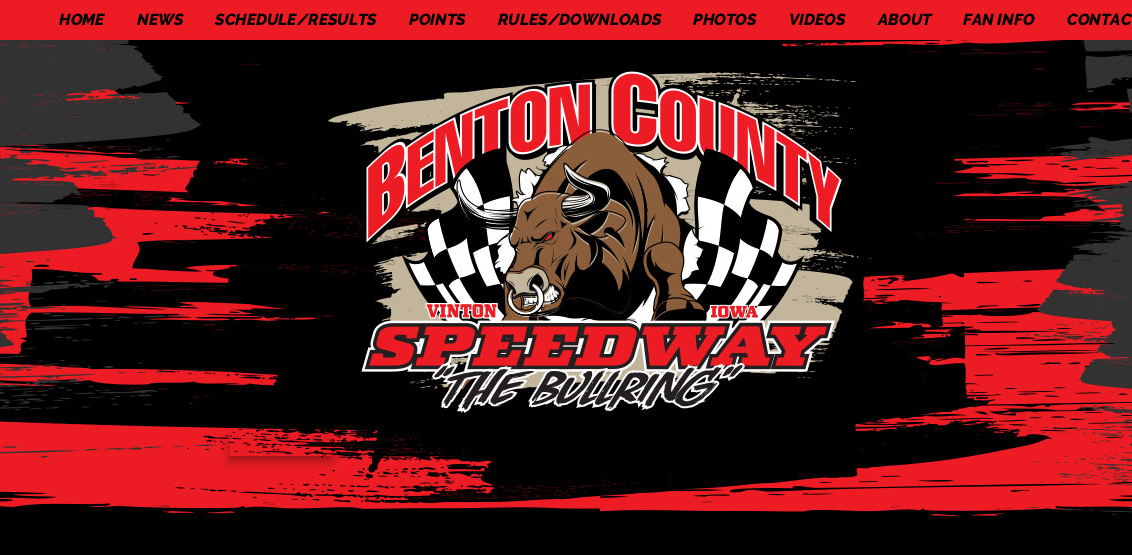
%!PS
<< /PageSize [1132 555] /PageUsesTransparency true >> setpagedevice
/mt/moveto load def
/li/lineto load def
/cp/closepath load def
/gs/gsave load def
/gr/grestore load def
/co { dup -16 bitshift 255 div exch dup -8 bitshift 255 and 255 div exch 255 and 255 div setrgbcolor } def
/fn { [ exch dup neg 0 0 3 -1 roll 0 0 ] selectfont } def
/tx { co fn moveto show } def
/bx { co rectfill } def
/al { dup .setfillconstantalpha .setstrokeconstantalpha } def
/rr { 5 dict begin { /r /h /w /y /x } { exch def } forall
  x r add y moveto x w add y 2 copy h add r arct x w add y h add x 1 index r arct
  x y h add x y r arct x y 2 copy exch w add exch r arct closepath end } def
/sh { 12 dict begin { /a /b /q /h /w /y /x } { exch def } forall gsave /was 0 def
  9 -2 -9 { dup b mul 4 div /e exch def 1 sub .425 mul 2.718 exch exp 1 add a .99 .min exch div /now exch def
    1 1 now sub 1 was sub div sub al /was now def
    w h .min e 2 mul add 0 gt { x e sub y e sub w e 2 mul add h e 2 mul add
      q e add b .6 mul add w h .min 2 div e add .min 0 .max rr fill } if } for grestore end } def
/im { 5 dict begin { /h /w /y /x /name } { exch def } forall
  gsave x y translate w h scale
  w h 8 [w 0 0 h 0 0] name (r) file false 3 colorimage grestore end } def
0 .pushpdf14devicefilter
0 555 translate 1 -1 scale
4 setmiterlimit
0 0 1132 555 16#000000 bx
(media/1.raw) 0 40 1132 480 im
0 0 1132 40 16#ED1C24 bx
gs
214 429 mt 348 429 li 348 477 li 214 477 li cp 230 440 mt 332 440 li 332 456 li 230 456 li cp eoclip newpath
16#000000 co
230 445 102 16 0 5 .35 sh
gr
(HOME) 59 25 /Raleway-ThinItalic 16 16#000000 tx
(NEWS) 137 25 /Raleway-ThinItalic 16 16#000000 tx
(SCHEDULE/RESULTS) 215 25 /Raleway-ThinItalic 16 16#000000 tx
(POINTS) 409 25 /Raleway-ThinItalic 16 16#000000 tx
(RULES/DOWNLOADS) 498 25 /Raleway-ThinItalic 16 16#000000 tx
(PHOTOS) 693 25 /Raleway-ThinItalic 16 16#000000 tx
(VIDEOS) 789 25 /Raleway-ThinItalic 16 16#000000 tx
(ABOUT) 878 25 /Raleway-ThinItalic 16 16#000000 tx
(FAN INFO) 963 25 /Raleway-ThinItalic 16 16#000000 tx
(CONTAC) 1067 25 /Raleway-ThinItalic 16 16#000000 tx
.poppdf14devicefilter showpage
